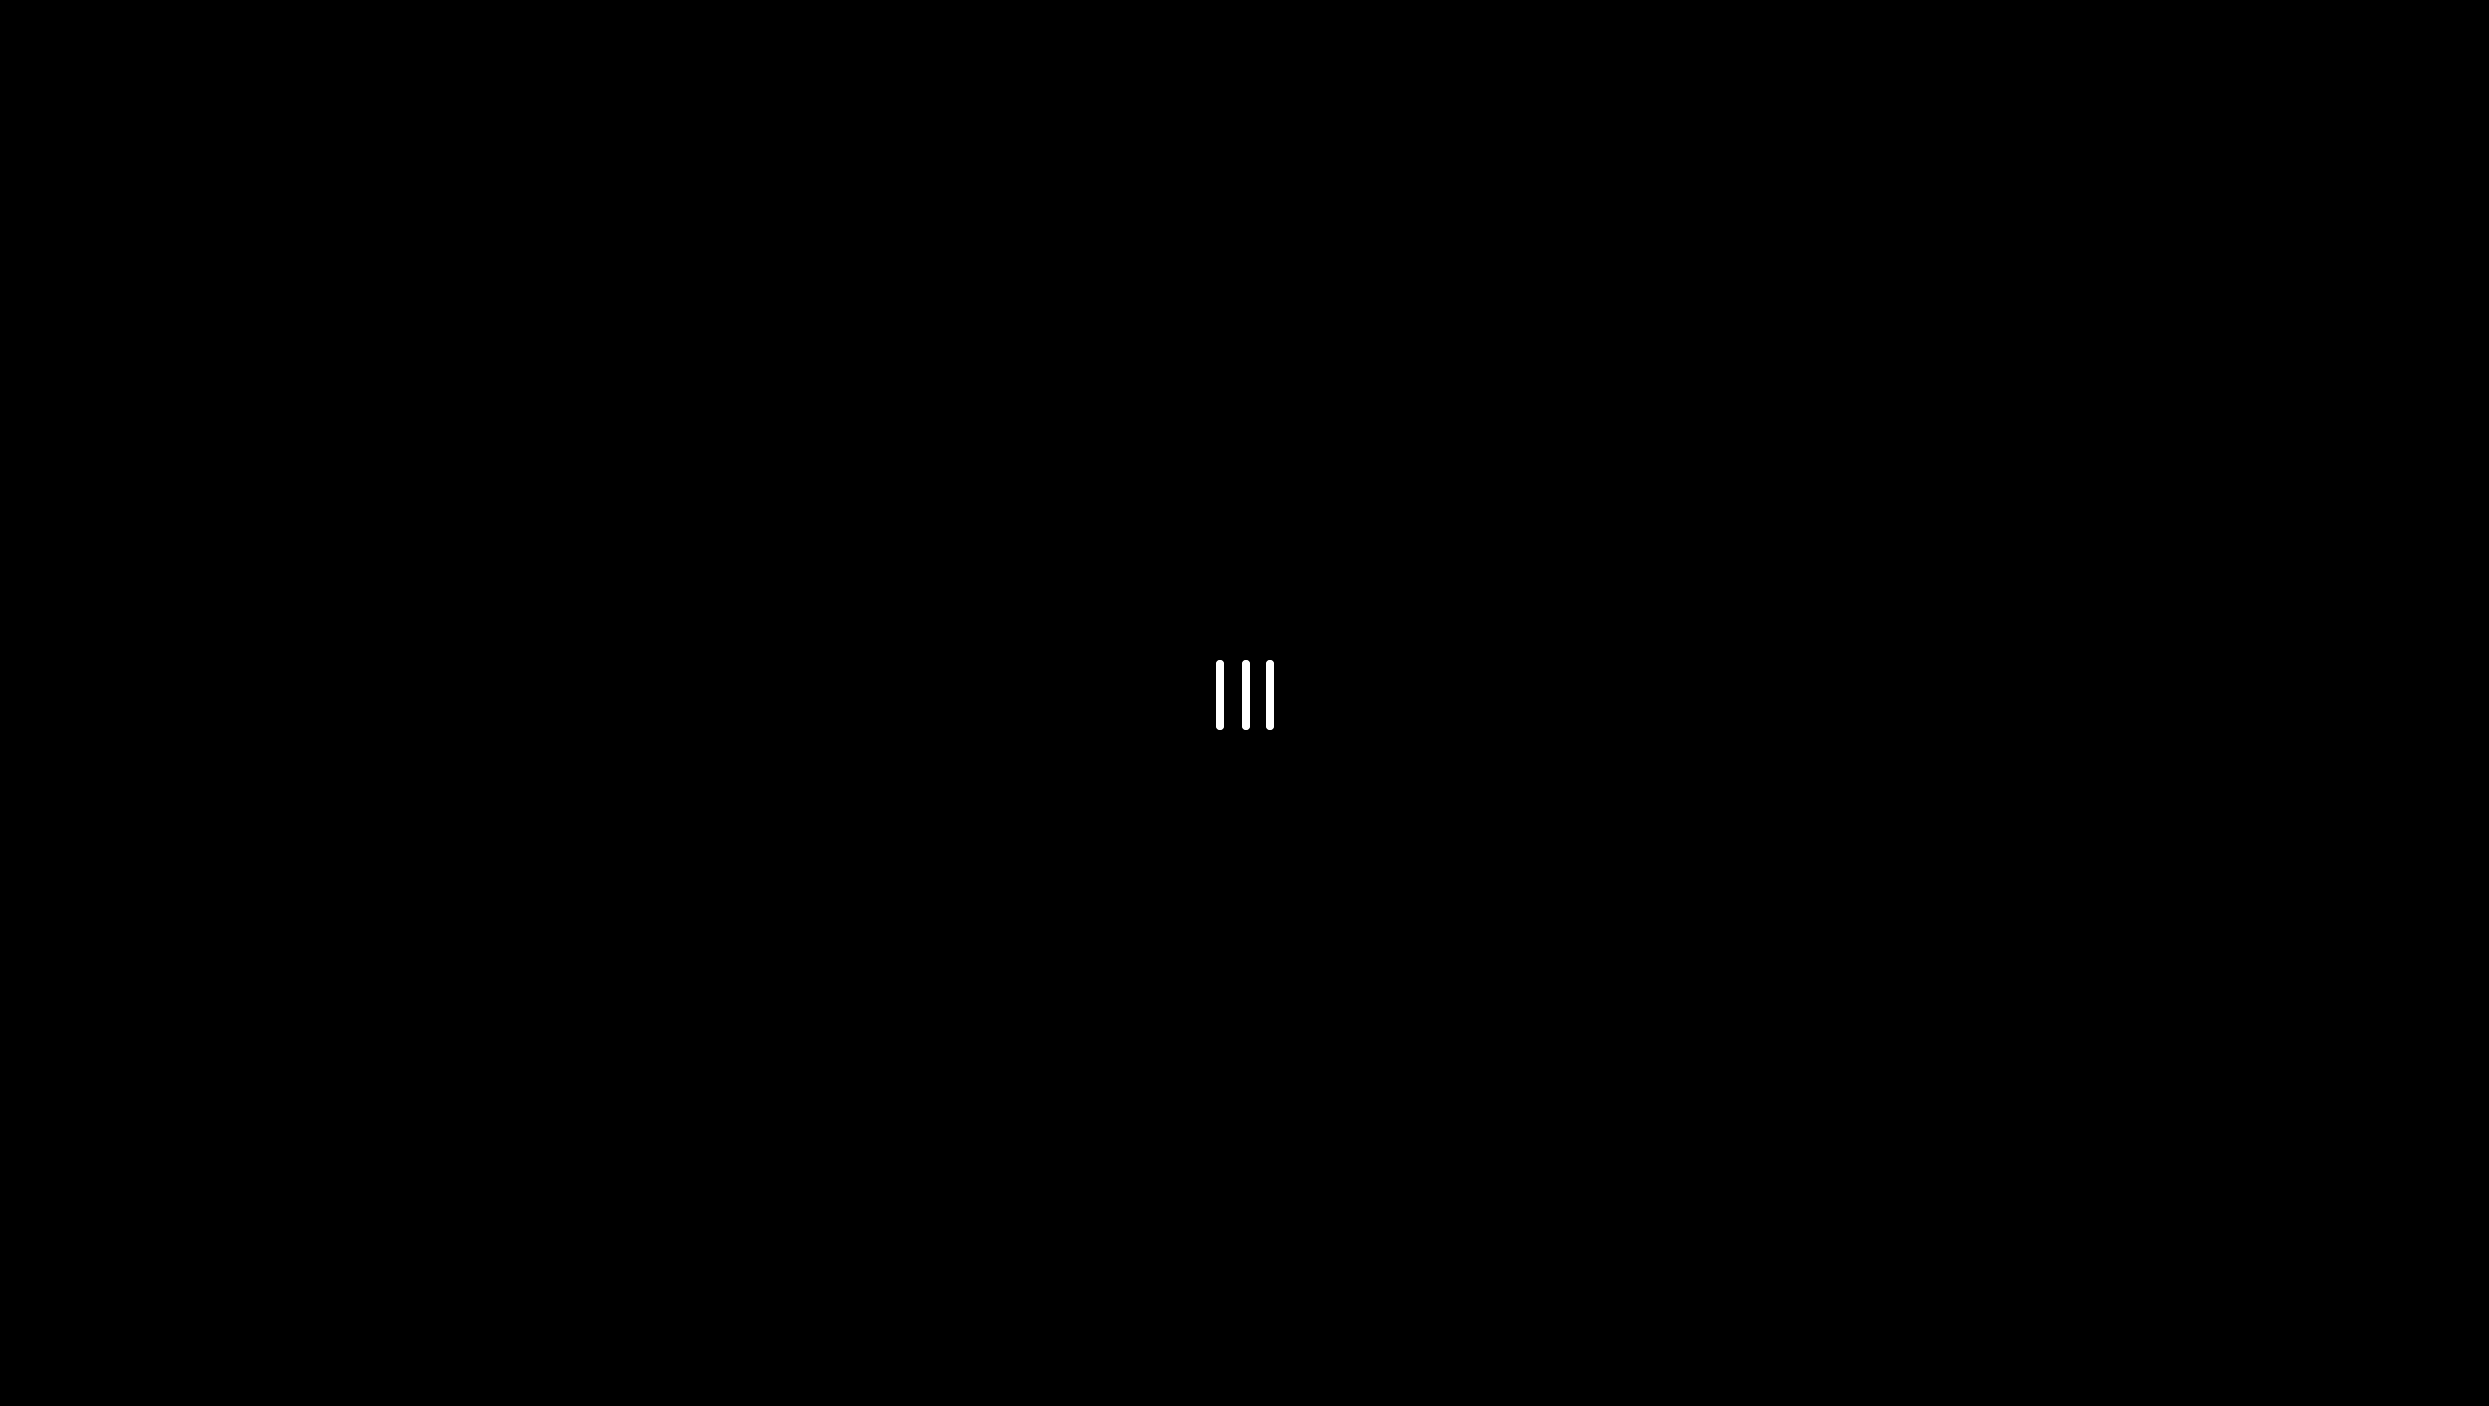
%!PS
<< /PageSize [2489 1406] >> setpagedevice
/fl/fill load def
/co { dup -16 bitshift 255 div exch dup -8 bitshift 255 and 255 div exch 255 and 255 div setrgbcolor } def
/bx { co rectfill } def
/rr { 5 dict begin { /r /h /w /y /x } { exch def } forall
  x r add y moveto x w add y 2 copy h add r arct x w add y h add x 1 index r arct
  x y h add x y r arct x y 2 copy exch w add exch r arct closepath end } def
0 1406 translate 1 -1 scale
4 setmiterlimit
0 0 2489 1406 16#000000 bx
16#FFFFFF co
1216 660 8 70 4 rr fl
1242 660 8 70 4 rr fl
1266 660 8 70 4 rr fl
showpage
